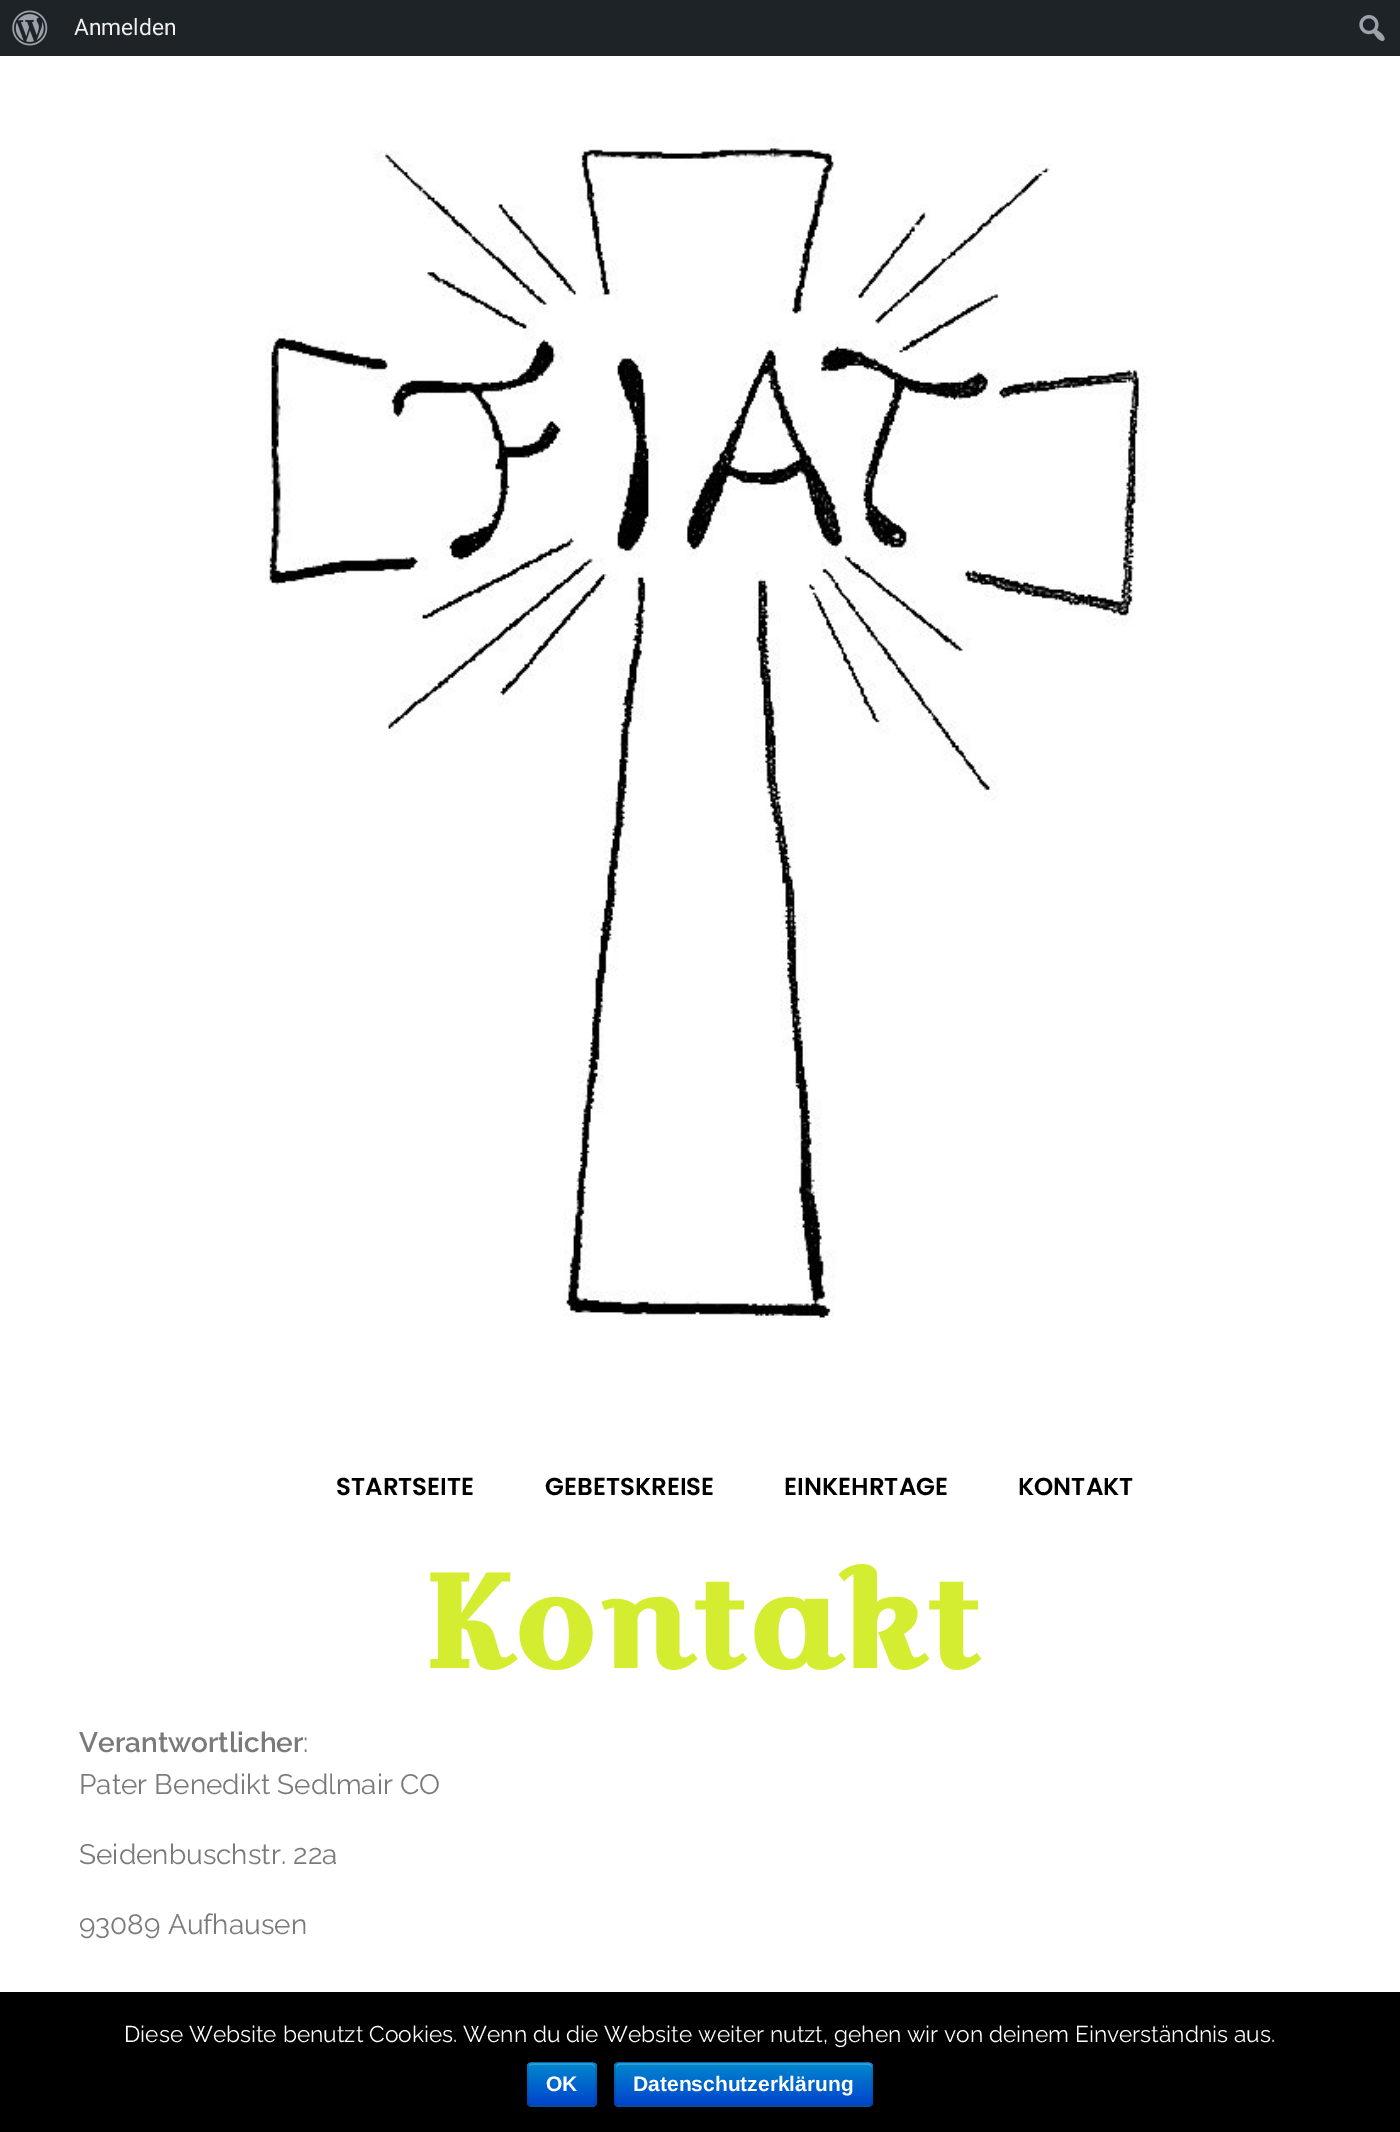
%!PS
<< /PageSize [1400 2132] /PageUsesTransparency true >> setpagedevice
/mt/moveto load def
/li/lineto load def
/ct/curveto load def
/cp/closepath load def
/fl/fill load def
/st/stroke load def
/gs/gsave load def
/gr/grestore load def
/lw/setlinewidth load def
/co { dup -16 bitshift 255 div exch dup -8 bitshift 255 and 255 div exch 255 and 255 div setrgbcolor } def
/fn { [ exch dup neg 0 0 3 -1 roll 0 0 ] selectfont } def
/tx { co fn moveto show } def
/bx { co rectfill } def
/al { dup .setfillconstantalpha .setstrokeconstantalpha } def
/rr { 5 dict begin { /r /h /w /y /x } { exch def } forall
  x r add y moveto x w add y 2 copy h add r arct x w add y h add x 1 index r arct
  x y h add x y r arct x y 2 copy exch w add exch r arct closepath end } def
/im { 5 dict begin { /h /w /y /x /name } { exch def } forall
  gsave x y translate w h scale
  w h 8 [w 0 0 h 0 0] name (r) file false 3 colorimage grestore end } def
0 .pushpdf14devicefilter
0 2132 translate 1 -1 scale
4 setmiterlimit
0 0 1400 2132 16#FFFFFF bx
0 0 1400 56 16#1D2327 bx
(media/1.raw) 12 10 36 36 im
(media/2.raw) 1359 15 26 26 im
(media/3.raw) 265 137 882 1181 im
0 1992 1400 140 16#000000 bx
16#006DCC co
527 2062 70 45 5 rr fl
gs
527 2062 70 45 5 rr clip newpath
gs 527 2063 mt 597 2063 li 597 2105 li 527 2105 li cp clip newpath
<< /ShadingType 2 /ColorSpace /DeviceRGB /Coords [562 2063 562 2105] /Extend [true true] /Function << /FunctionType 2 /Domain [0 1] /C0 [0 .533 .8] /C1 [0 .267 .8] /N 1 >> >> shfill gr
gr
0.2 al
16#FFFFFF co
532 2065 mt 592 2065 li 593 2065 595 2067 595 2068 ct 595 2067 li 595 2065 593 2063 591 2063 ct 533 2063 li 531 2063 529 2064 529 2066 ct cp fl
0.25 al
16#000000 co
1.8 lw
594.5 2105 mt 592 2106 li 531.5 2106 li 529 2105 li st
0.1 al
529 2105 mt 528 2104 527.5 2103 527.5 2102 ct 527.5 2067 li 527.5 2065.5 528 2064.5 529 2063.5 ct 529.5 2063 531 2062.5 532 2062.5 ct 591.5 2062.5 li 592.5 2062.5 594 2063 594.5 2063.5 ct 595.5 2064.5 596 2065.5 596 2067 ct 596 2102 li 596 2103 595.5 2104 594.5 2105 ct st
1 al
16#006DCC co
614 2062 259 45 5 rr fl
gs
614 2062 259 45 5 rr clip newpath
gs 614 2063 mt 873 2063 li 873 2105 li 614 2105 li cp clip newpath
<< /ShadingType 2 /ColorSpace /DeviceRGB /Coords [744 2063 744 2105] /Extend [true true] /Function << /FunctionType 2 /Domain [0 1] /C0 [0 .533 .8] /C1 [0 .267 .8] /N 1 >> >> shfill gr
gr
0.2 al
16#FFFFFF co
620 2065 mt 868 2065 li 870 2065 872 2067 872 2068 ct 872 2067 li 872 2065 870 2063 868 2063 ct 620 2063 li 618 2063 616 2065 616 2067 ct 616 2068 li 616 2067 618 2065 620 2065 ct cp fl
0.25 al
16#000000 co
871 2105 mt 870.5 2105.5 869 2106 868 2106 ct 619.5 2106 li 618.5 2106 617 2105.5 616.5 2105 ct st
0.1 al
616.5 2105 mt 615.5 2104 615 2103 615 2102 ct 615 2067 li 615 2065.5 615.5 2064.5 616.5 2063.5 ct 617 2063 618.5 2062.5 619.5 2062.5 ct 868 2062.5 li 869 2062.5 870.5 2063 871 2063.5 ct 872 2064.5 872.5 2065.5 872.5 2067 ct 872.5 2102 li 872.5 2103 872 2104 871 2105 ct st
1 al
(Anmelden) 74 35 /Roboto-Regular 22.75 16#F0F0F1 tx
(STARTSEITE) 336 1495 /Poppins-SemiBold 24.5 16#000000 tx
(GEBETSKREISE) 545 1495 /Poppins-SemiBold 24.5 16#000000 tx
(EINKEHRTAGE) 784 1495 /Poppins-SemiBold 24.5 16#000000 tx
(KONTAKT) 1018 1495 /Poppins-SemiBold 24.5 16#000000 tx
(Kontakt) 421 1668 /CroissantOne-Bold 131.25 16#D4ED31 tx
(Verantwortlicher) 79 1752 /Raleway-SemiBold 28 16#7A7A7A tx
(:) 303 1752 /Raleway-Regular 28 16#7A7A7A tx
(Pater Benedikt Sedlmair CO) 79 1794 /Raleway-Regular 28 16#7A7A7A tx
(Seidenbuschstr. 22a) 79 1864 /Raleway-Regular 28 16#7A7A7A tx
(93089 Aufhausen) 79 1934 /Raleway-Regular 28 16#7A7A7A tx
(Diese Website benutzt Cookies. Wenn du die Website weiter nutzt, gehen wir von deinem Einverständnis aus.) 124 2042 /Raleway-Regular 22.75 16#FFFFFF tx
(OK) 546 2091 /LiberationSans-Bold 21 16#FFFFFF tx
(Datenschutzerklärung) 633 2091 /LiberationSans-Bold 21 16#FFFFFF tx
.poppdf14devicefilter showpage
